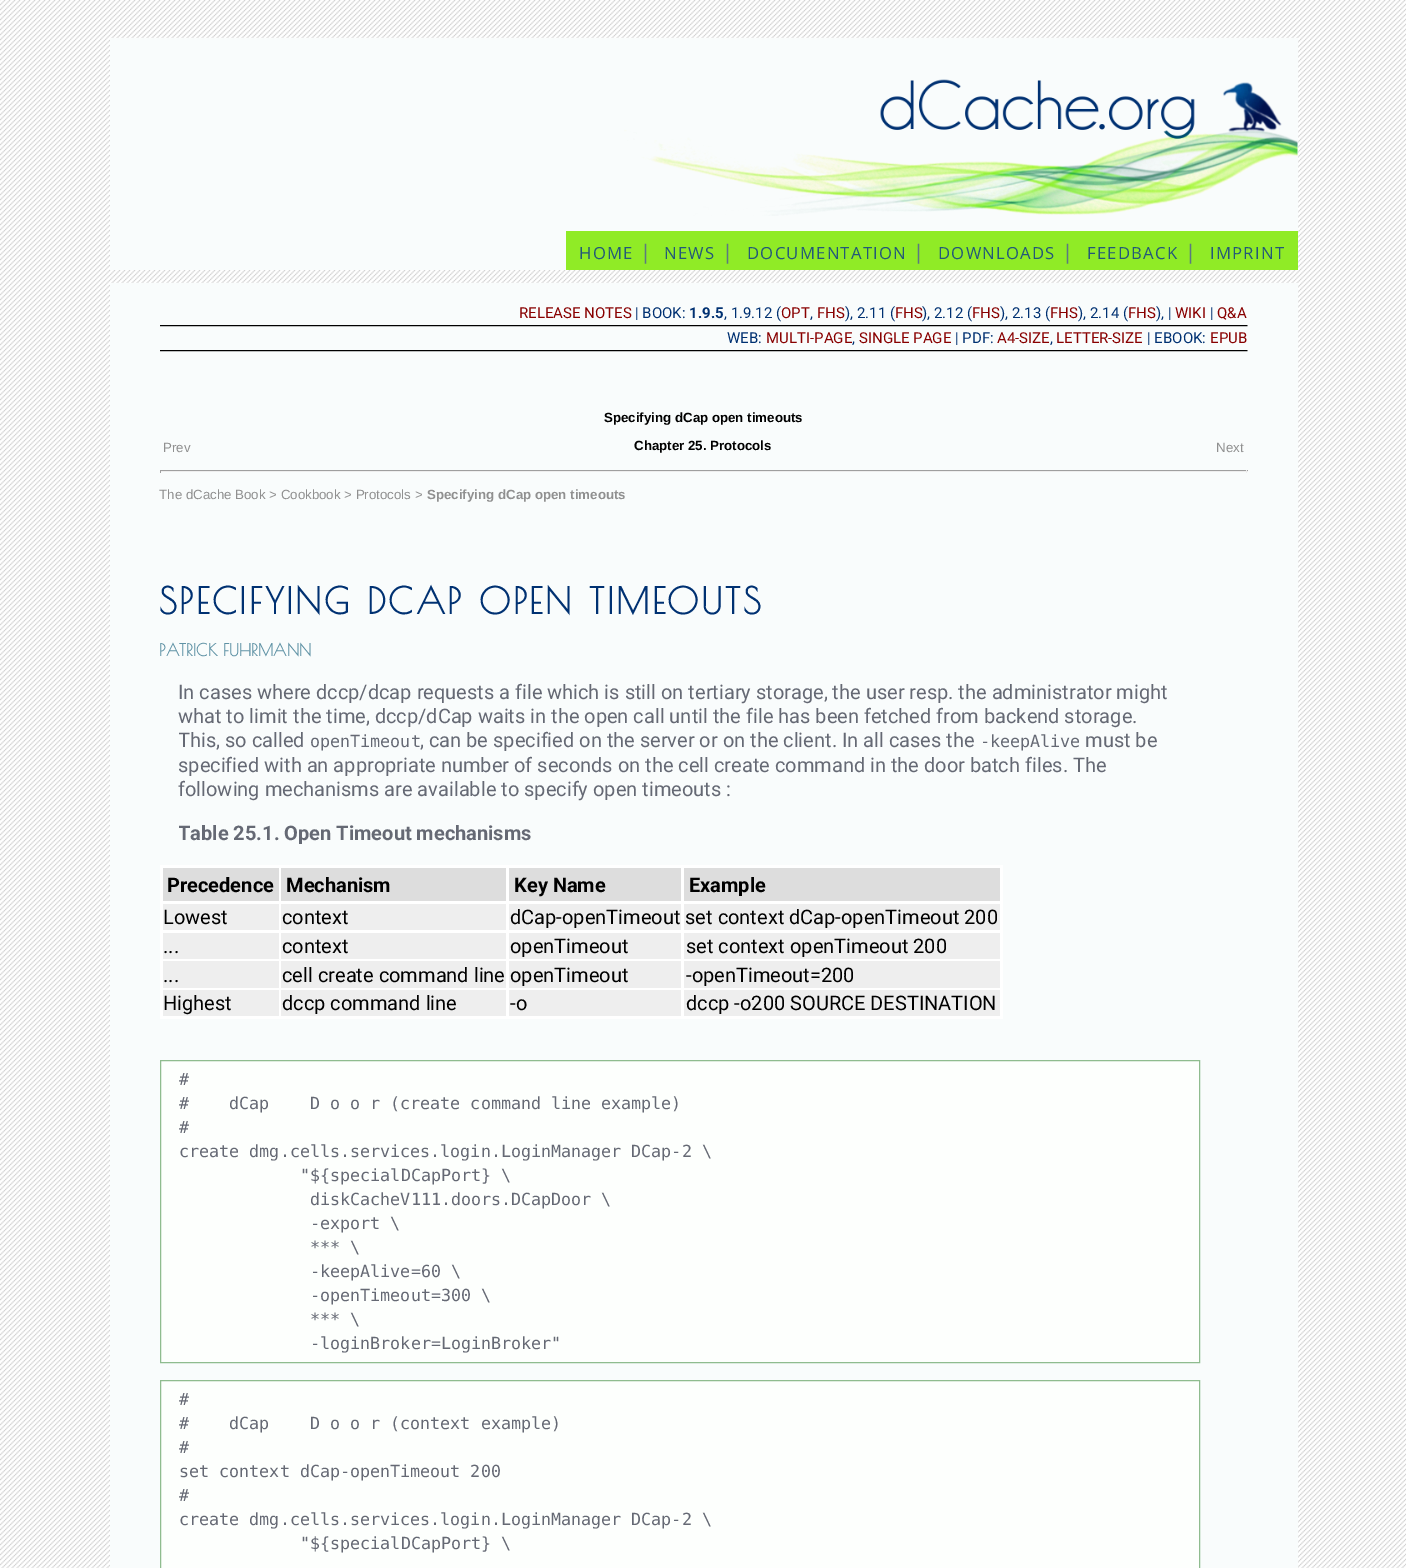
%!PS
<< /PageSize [1406 1568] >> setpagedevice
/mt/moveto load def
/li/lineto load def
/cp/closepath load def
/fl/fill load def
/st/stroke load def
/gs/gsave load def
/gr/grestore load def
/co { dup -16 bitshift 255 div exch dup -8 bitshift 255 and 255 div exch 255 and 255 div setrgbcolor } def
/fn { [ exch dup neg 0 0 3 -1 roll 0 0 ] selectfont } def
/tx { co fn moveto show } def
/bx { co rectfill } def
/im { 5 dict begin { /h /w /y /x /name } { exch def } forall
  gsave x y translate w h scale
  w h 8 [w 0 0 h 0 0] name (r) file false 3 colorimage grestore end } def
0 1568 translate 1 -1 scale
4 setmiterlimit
0 0 1406 1568 16#FFFFFF bx
(media/1.raw) 0 0 1406 1568 im
110 38 1188 232 16#F9FCFC bx
(media/2.raw) 624 79 674 137 im
566 231 732 39 16#90EB26 bx
110 283 1188 1285 16#F9FCFC bx
(media/3.raw) 160 325 1088 2 im
(media/3.raw) 160 350 1088 2 im
160 470 1088 1 16#9F9F9F bx
1246 470 1 3 16#EEEEEE bx
160 471 1088 1 16#EEEEEE bx
160 470 1 3 16#9F9F9F bx
160 865 843 154 16#FFFFFF bx
163 868 116 33 16#DDDDDD bx
281 868 225 33 16#DDDDDD bx
509 868 172 33 16#DDDDDD bx
684 868 316 33 16#DDDDDD bx
163 904 116 26 16#EEEEEE bx
684 904 316 26 16#EEEEEE bx
281 904 225 26 16#EEEEEE bx
509 904 172 26 16#EEEEEE bx
163 933 116 26 16#EEEEEE bx
281 933 225 26 16#EEEEEE bx
509 933 172 26 16#EEEEEE bx
684 933 316 26 16#EEEEEE bx
509 961 172 27 16#EEEEEE bx
163 961 116 27 16#EEEEEE bx
281 961 225 27 16#EEEEEE bx
684 961 316 27 16#EEEEEE bx
163 990 116 26 16#EEEEEE bx
281 990 225 26 16#EEEEEE bx
509 990 172 26 16#EEEEEE bx
684 990 316 26 16#EEEEEE bx
16#FDFFFD co
160.5 1060.5 mt 1199.5 1060.5 li 1199.5 1362.5 li 160.5 1362.5 li cp gs fl gr
16#8FBC8F co
st
16#FDFFFD co
160.5 1380.5 mt 1199.5 1380.5 li 1199.5 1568.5 li 160.5 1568.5 li cp gs fl gr
16#8FBC8F co
st
/OpenSans-Regular 16.7 fn
16#23587A co
579 259 mt 1.25 0 (HOME) ashow
/OpenSans-Regular 20 fn
16#5B7882 co
640 259 mt 1.25 0 (|) ashow
/OpenSans-Regular 16.7 fn
16#23587A co
664 259 mt 1.25 0 (NEWS) ashow
/OpenSans-Regular 20 fn
16#5B7882 co
722 259 mt 1.25 0 (|) ashow
/OpenSans-Regular 16.7 fn
16#23587A co
747 259 mt 1.25 0 (DOCUMENTATION) ashow
/OpenSans-Regular 20 fn
16#5B7882 co
913 259 mt 1.25 0 (|) ashow
/OpenSans-Regular 16.7 fn
16#23587A co
938 259 mt 1.25 0 (DOWNLOADS) ashow
/OpenSans-Regular 20 fn
16#5B7882 co
1062 259 mt 1.25 0 (|) ashow
/OpenSans-Regular 16.7 fn
16#23587A co
1087 259 mt 1.25 0 (FEEDBACK) ashow
/OpenSans-Regular 20 fn
16#5B7882 co
1185 259 mt 1.25 0 (|) ashow
/OpenSans-Regular 16.7 fn
16#23587A co
1210 259 mt 1.25 0 (IMPRINT) ashow
(RELEASE NOTES) 519 318 /Roboto-Regular 15 16#880000 tx
(| BOOK:) 635 318 /Roboto-Regular 15 16#003172 tx
(1.9.5) 689 318 /Roboto-Bold 15 16#003172 tx
(, 1.9.12 \() 724 318 /Roboto-Regular 15 16#003172 tx
(OPT) 781 318 /Roboto-Regular 15 16#880000 tx
(,) 810 318 /Roboto-Regular 15 16#003172 tx
(FHS) 817 318 /Roboto-Regular 15 16#880000 tx
(\), 2.11 \() 845 318 /Roboto-Regular 15 16#003172 tx
(FHS) 895 318 /Roboto-Regular 15 16#880000 tx
(\), 2.12 \() 922 318 /Roboto-Regular 15 16#003172 tx
(FHS) 972 318 /Roboto-Regular 15 16#880000 tx
(\), 2.13 \() 1000 318 /Roboto-Regular 15 16#003172 tx
(FHS) 1050 318 /Roboto-Regular 15 16#880000 tx
(\), 2.14 \() 1078 318 /Roboto-Regular 15 16#003172 tx
(FHS) 1128 318 /Roboto-Regular 15 16#880000 tx
(\), |) 1156 318 /Roboto-Regular 15 16#003172 tx
(WIKI) 1175 318 /Roboto-Regular 15 16#880000 tx
(|) 1210 318 /Roboto-Regular 15 16#003172 tx
(Q&A) 1217 318 /Roboto-Regular 15 16#880000 tx
(WEB:) 727 343 /Roboto-Regular 15 16#003172 tx
(MULTI-PAGE) 766 343 /Roboto-Regular 15 16#880000 tx
(,) 852 343 /Roboto-Regular 15 16#003172 tx
(SINGLE PAGE) 859 343 /Roboto-Regular 15 16#880000 tx
(| PDF:) 955 343 /Roboto-Regular 15 16#003172 tx
(A4-SIZE) 997 343 /Roboto-Regular 15 16#880000 tx
(,) 1050 343 /Roboto-Regular 15 16#003172 tx
(LETTER-SIZE) 1056 343 /Roboto-Regular 15 16#880000 tx
(| EBOOK:) 1147 343 /Roboto-Regular 15 16#003172 tx
(EPUB) 1210 343 /Roboto-Regular 15 16#880000 tx
(Specifying dCap open timeouts) 604 422 /LiberationSans-Bold 13.3 16#000000 tx
(Prev) 163 452 /LiberationSans-Regular 13.3 16#909090 tx
(Chapter 25. Protocols) 634 450 /LiberationSans-Bold 13.3 16#000000 tx
(Next) 1216 452 /LiberationSans-Regular 13.3 16#909090 tx
(The dCache Book > Cookbook > Protocols >) 159 499 /LiberationSans-Regular 13.3 16#909090 tx
(Specifying dCap open timeouts) 427 499 /LiberationSans-Bold 13.3 16#909090 tx
/PoiretOne-Bold 36 fn
16#003172 co
159 614 mt 2.5 0 (SPECIFYING DCAP OPEN TIMEOUTS) ashow
(PATRICK FUHRMANN) 159 656 /PoiretOne-Bold 16.7 16#5F92A5 tx
(In cases where dccp/dcap requests a file which is still on tertiary storage, the user resp. the administrator might) 178 699 /Roboto-Regular 20 16#656974 tx
(what to limit the time, dccp/dCap waits in the open call until the file has been fetched from backend storage.) 178 723 /Roboto-Regular 20 16#656974 tx
gs
179 680 1000 121 rectclip
(This, so called) 178 747 /Roboto-Regular 20 16#656974 tx
gr
(openTimeout) 310 747 /DejaVuSansMono-Regular 16.7 16#656974 tx
(, can be specified on the server or on the client. In all cases the) 420 747 /Roboto-Regular 20 16#656974 tx
(-keepAlive) 980 747 /DejaVuSansMono-Regular 16.7 16#656974 tx
(must be) 1085 747 /Roboto-Regular 20 16#656974 tx
(specified with an appropriate number of seconds on the cell create command in the door batch files. The) 178 772 /Roboto-Regular 20 16#656974 tx
(following mechanisms are available to specify open timeouts :) 178 796 /Roboto-Regular 20 16#656974 tx
gs
179 821 1000 24 rectclip
(Table 25.1. Open Timeout mechanisms) 178 840 /Roboto-Bold 20 16#656974 tx
gr
(Precedence) 167 892 /Roboto-Bold 20 16#000000 tx
(Mechanism) 286 892 /Roboto-Bold 20 16#000000 tx
(Key Name) 514 892 /Roboto-Bold 20 16#000000 tx
(Example) 689 892 /Roboto-Bold 20 16#000000 tx
(Lowest) 163 924 /Roboto-Regular 20 16#000000 tx
(context) 282 924 /Roboto-Regular 20 16#000000 tx
(dCap-openTimeout set context dCap-openTimeout 200) 510 924 /Roboto-Regular 20 16#000000 tx
(...) 163 953 /Roboto-Regular 20 16#000000 tx
(context) 282 953 /Roboto-Regular 20 16#000000 tx
(openTimeout) 510 953 /Roboto-Regular 20 16#000000 tx
(set context openTimeout 200) 686 953 /Roboto-Regular 20 16#000000 tx
(...) 163 982 /Roboto-Regular 20 16#000000 tx
(cell create command line openTimeout) 282 982 /Roboto-Regular 20 16#000000 tx
(-openTimeout=200) 686 982 /Roboto-Regular 20 16#000000 tx
(Highest) 163 1010 /Roboto-Regular 20 16#000000 tx
(dccp command line) 282 1010 /Roboto-Regular 20 16#000000 tx
(-o) 510 1010 /Roboto-Regular 20 16#000000 tx
(dccp -o200 SOURCE DESTINATION) 686 1010 /Roboto-Regular 20 16#000000 tx
(#) 179 1085 /DejaVuSansMono-Regular 16.7 16#656974 tx
(#    dCap    D o o r \(create command line example\)) 179 1109 /DejaVuSansMono-Regular 16.7 16#656974 tx
(#) 179 1133 /DejaVuSansMono-Regular 16.7 16#656974 tx
(create dmg.cells.services.login.LoginManager DCap-2 \\) 179 1157 /DejaVuSansMono-Regular 16.7 16#656974 tx
("${specialDCapPort} \\) 300 1181 /DejaVuSansMono-Regular 16.7 16#656974 tx
(diskCacheV111.doors.DCapDoor \\) 310 1205 /DejaVuSansMono-Regular 16.7 16#656974 tx
(-export \\) 310 1229 /DejaVuSansMono-Regular 16.7 16#656974 tx
(*** \\) 310 1253 /DejaVuSansMono-Regular 16.7 16#656974 tx
(-keepAlive=60 \\) 310 1277 /DejaVuSansMono-Regular 16.7 16#656974 tx
(-openTimeout=300 \\) 310 1301 /DejaVuSansMono-Regular 16.7 16#656974 tx
(*** \\) 310 1325 /DejaVuSansMono-Regular 16.7 16#656974 tx
(-loginBroker=LoginBroker") 310 1349 /DejaVuSansMono-Regular 16.7 16#656974 tx
(#) 179 1405 /DejaVuSansMono-Regular 16.7 16#656974 tx
(#    dCap    D o o r \(context example\)) 179 1429 /DejaVuSansMono-Regular 16.7 16#656974 tx
(#) 179 1453 /DejaVuSansMono-Regular 16.7 16#656974 tx
(set context dCap-openTimeout 200) 179 1477 /DejaVuSansMono-Regular 16.7 16#656974 tx
(#) 179 1501 /DejaVuSansMono-Regular 16.7 16#656974 tx
(create dmg.cells.services.login.LoginManager DCap-2 \\) 179 1525 /DejaVuSansMono-Regular 16.7 16#656974 tx
("${specialDCapPort} \\) 300 1549 /DejaVuSansMono-Regular 16.7 16#656974 tx
showpage
